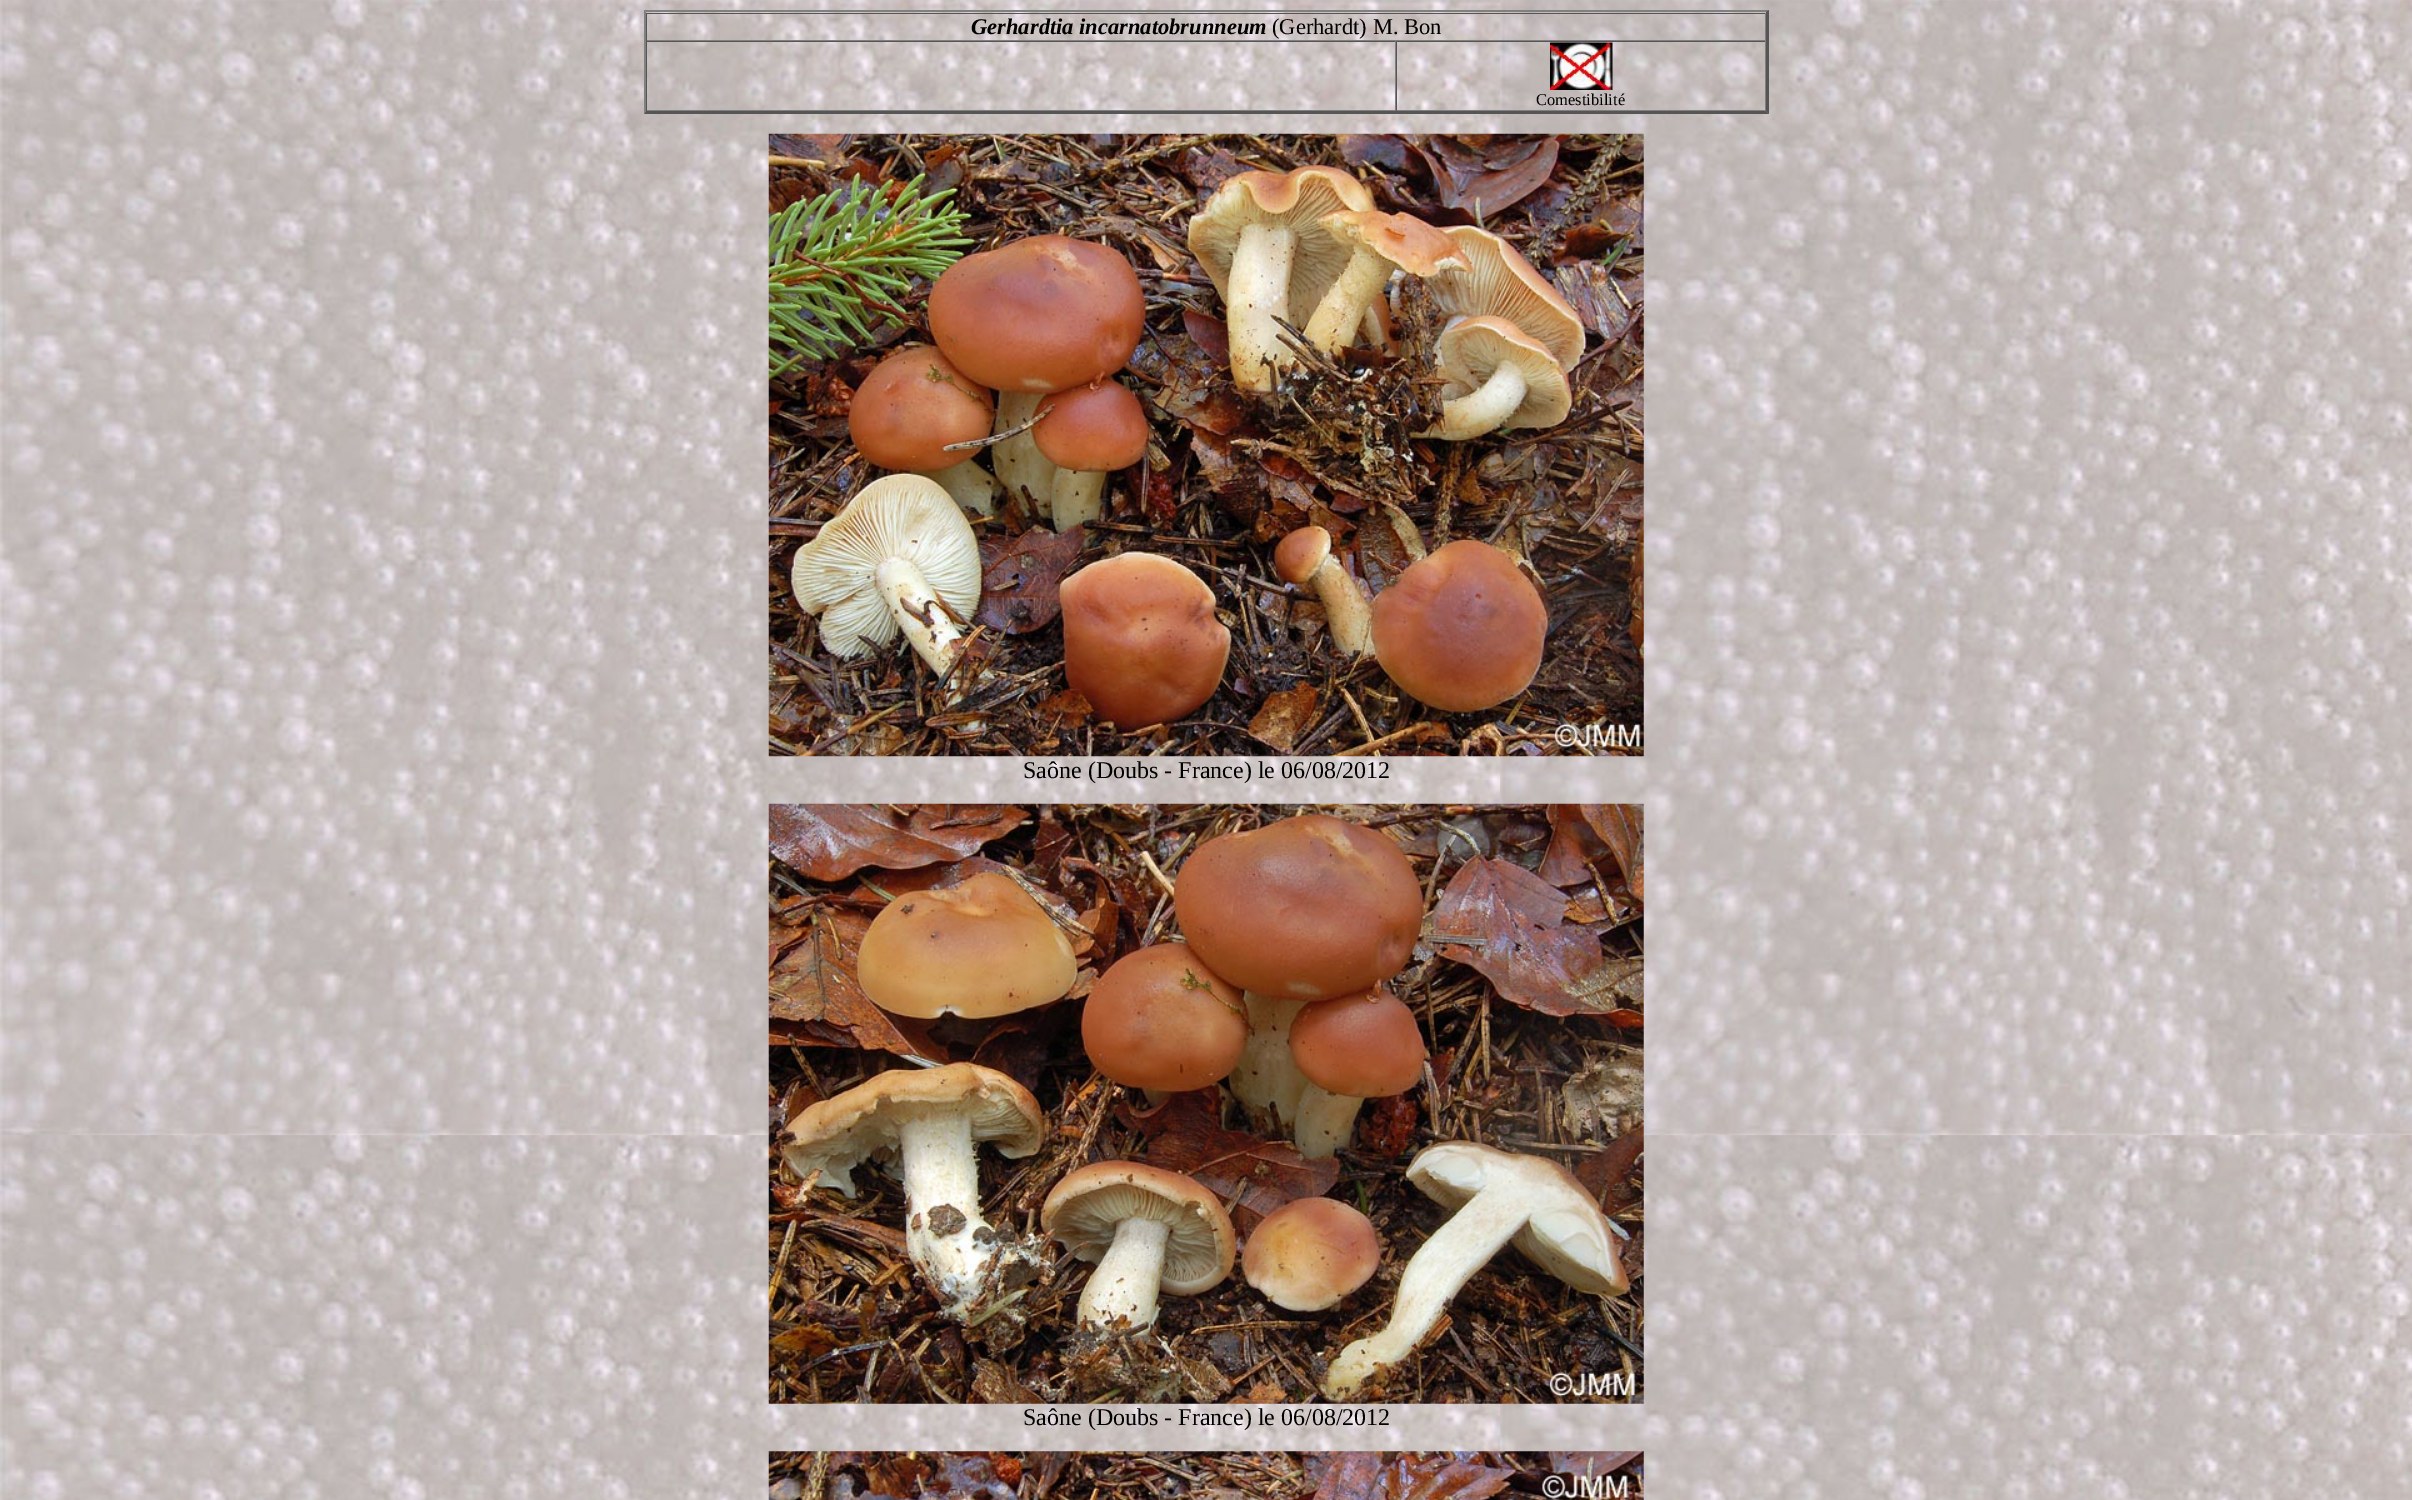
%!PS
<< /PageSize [2412 1500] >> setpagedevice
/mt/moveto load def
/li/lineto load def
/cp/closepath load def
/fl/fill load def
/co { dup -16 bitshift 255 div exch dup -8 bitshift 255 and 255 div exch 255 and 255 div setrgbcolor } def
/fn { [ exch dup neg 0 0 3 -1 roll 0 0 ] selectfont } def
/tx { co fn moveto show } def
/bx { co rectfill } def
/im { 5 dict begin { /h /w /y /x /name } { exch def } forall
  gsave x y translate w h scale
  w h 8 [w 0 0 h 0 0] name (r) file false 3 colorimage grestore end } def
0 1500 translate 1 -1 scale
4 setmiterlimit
0 0 2412 1500 16#FFFFFF bx
(media/1.raw) 0 0 2412 1500 im
16#808080 co
644 10 mt 1769 10 li 1766 12 li 646 12 li cp fl
16#555555 co
1769 10 mt 1769 114 li 1766 111 li 1766 12 li cp fl
1769 114 mt 644 114 li 646 111 li 1766 111 li cp fl
16#808080 co
644 114 mt 644 10 li 646 12 li 646 111 li cp fl
646 13 1120 1 16#555555 bx
1765 13 1 28 16#808080 bx
646 40 1120 1 16#808080 bx
646 13 1 28 16#555555 bx
646 41 1120 1 16#555555 bx
1395 41 1 70 16#808080 bx
646 110 750 1 16#808080 bx
646 41 1 70 16#555555 bx
1765 41 1 70 16#808080 bx
1396 110 370 1 16#808080 bx
1396 41 1 70 16#555555 bx
(media/2.raw) 1550 42 63 48 im
(media/3.raw) 768 133 876 624 im
(media/4.raw) 768 803 876 601 im
(media/5.raw) 768 1451 876 49 im
(Gerhardtia incarnatobrunneum) 971 34 /LiberationSerif-BoldItalic 22.5 16#000000 tx
(\(Gerhardt\) M. Bon) 1272 34 /LiberationSerif-Regular 22.5 16#000000 tx
(Comestibilité) 1536 105 /LiberationSerif-Regular 16.5 16#000000 tx
(Saône \(Doubs - France\) le 06/08/2012) 1023 778 /LiberationSerif-Regular 24 16#000000 tx
(Saône \(Doubs - France\) le 06/08/2012) 1023 1425 /LiberationSerif-Regular 24 16#000000 tx
showpage
